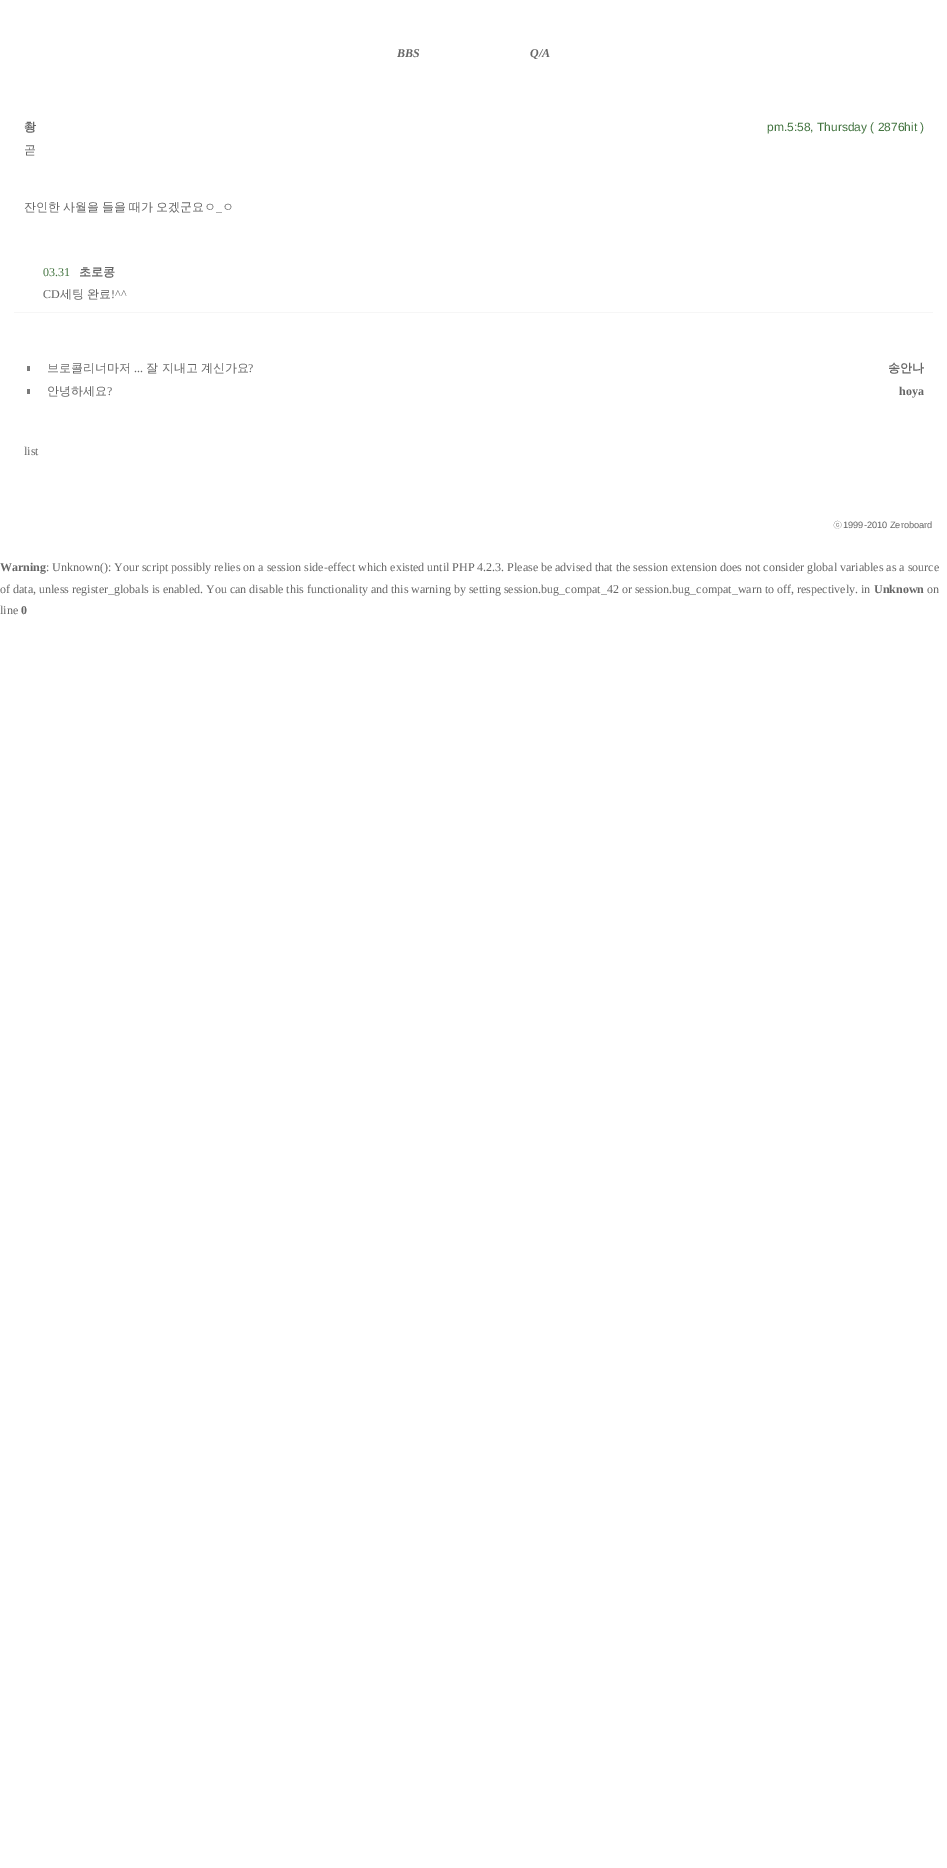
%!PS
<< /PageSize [947 1868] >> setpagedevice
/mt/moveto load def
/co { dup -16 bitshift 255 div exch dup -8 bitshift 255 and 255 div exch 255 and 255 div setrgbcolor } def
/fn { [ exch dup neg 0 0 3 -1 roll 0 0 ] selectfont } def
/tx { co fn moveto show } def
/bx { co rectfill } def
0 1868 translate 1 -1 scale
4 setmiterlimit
0 0 947 1868 16#FFFFFF bx
14 312 919 1 16#F6F6F6 bx
27 366 3 5 16#7A7A7A bx
27 389 3 5 16#7A7A7A bx
(BBS) 397 57 /LiberationSerif-BoldItalic 12 16#666666 tx
(Q/A) 530 57 /LiberationSerif-BoldItalic 12 16#666666 tx
(촹) 24 131 /WenQuanYiZenHei-Bold 12 16#666666 tx
(pm.5:58, Thursday \( 2876hit \)) 767 131 /LiberationSans-Regular 12 16#437440 tx
(곧) 24 154 /WenQuanYiZenHei-Medium 12 16#666666 tx
24 211 mt -.5 0 32 (잔인한 사월을 들을 때가 오겠군요ㅇ) widthshow
(ㅇ) 222 211 /WenQuanYiZenHei-Medium 12 16#666666 tx
(_) 216 211 /LiberationSerif-Regular 12 16#666666 tx
(03.31) 43 276 /LiberationSerif-Regular 12 16#437440 tx
(초로콩) 79 276 /WenQuanYiZenHei-Bold 12 16#666666 tx
(CD) 43 298 /LiberationSerif-Regular 12 16#666666 tx
/WenQuanYiZenHei-Medium 12 fn
60 298 mt -.5 0 32 (세팅 완료) widthshow
(!^^) 111 298 /LiberationSerif-Regular 12 16#666666 tx
(브로콜리너마저) 47 372 /WenQuanYiZenHei-Medium 12 16#666666 tx
(...) 134 372 /LiberationSerif-Regular 12 16#666666 tx
(잘 지내고 계신가요) 146 372 /WenQuanYiZenHei-Medium 12 16#666666 tx
(?) 248 372 /LiberationSerif-Regular 12 16#666666 tx
(송안나) 888 372 /WenQuanYiZenHei-Bold 12 16#666666 tx
(안녕하세요) 47 395 /WenQuanYiZenHei-Medium 12 16#666666 tx
(?) 107 395 /LiberationSerif-Regular 12 16#666666 tx
(hoya) 899 395 /LiberationSerif-Bold 12 16#666666 tx
(list) 24 455 /LiberationSerif-Regular 12 16#666666 tx
(ⓒ) 833 528 /Dotum-Regular 9.25 16#666666 tx
(1999-2010 Zeroboard) 843 528 /LiberationSans-Regular 9.25 16#666666 tx
(Warning) 0 571 /LiberationSerif-Bold 12 16#666666 tx
(: Unknown\(\): Your script possibly relies on a session side-effect which existed until PHP 4.2.3. Please be advised that the session extension does not consider global variables as a source) 46 571 /LiberationSerif-Regular 12 16#666666 tx
(of data, unless register_globals is enabled. You can disable this functionality and this warning by setting session.bug_compat_42 or session.bug_compat_warn to off, respectively. in) 0 593 /LiberationSerif-Regular 12 16#666666 tx
(Unknown) 874 593 /LiberationSerif-Bold 12 16#666666 tx
(on) 927 593 /LiberationSerif-Regular 12 16#666666 tx
(line) 0 614 /LiberationSerif-Regular 12 16#666666 tx
(0) 21 614 /LiberationSerif-Bold 12 16#666666 tx
showpage
